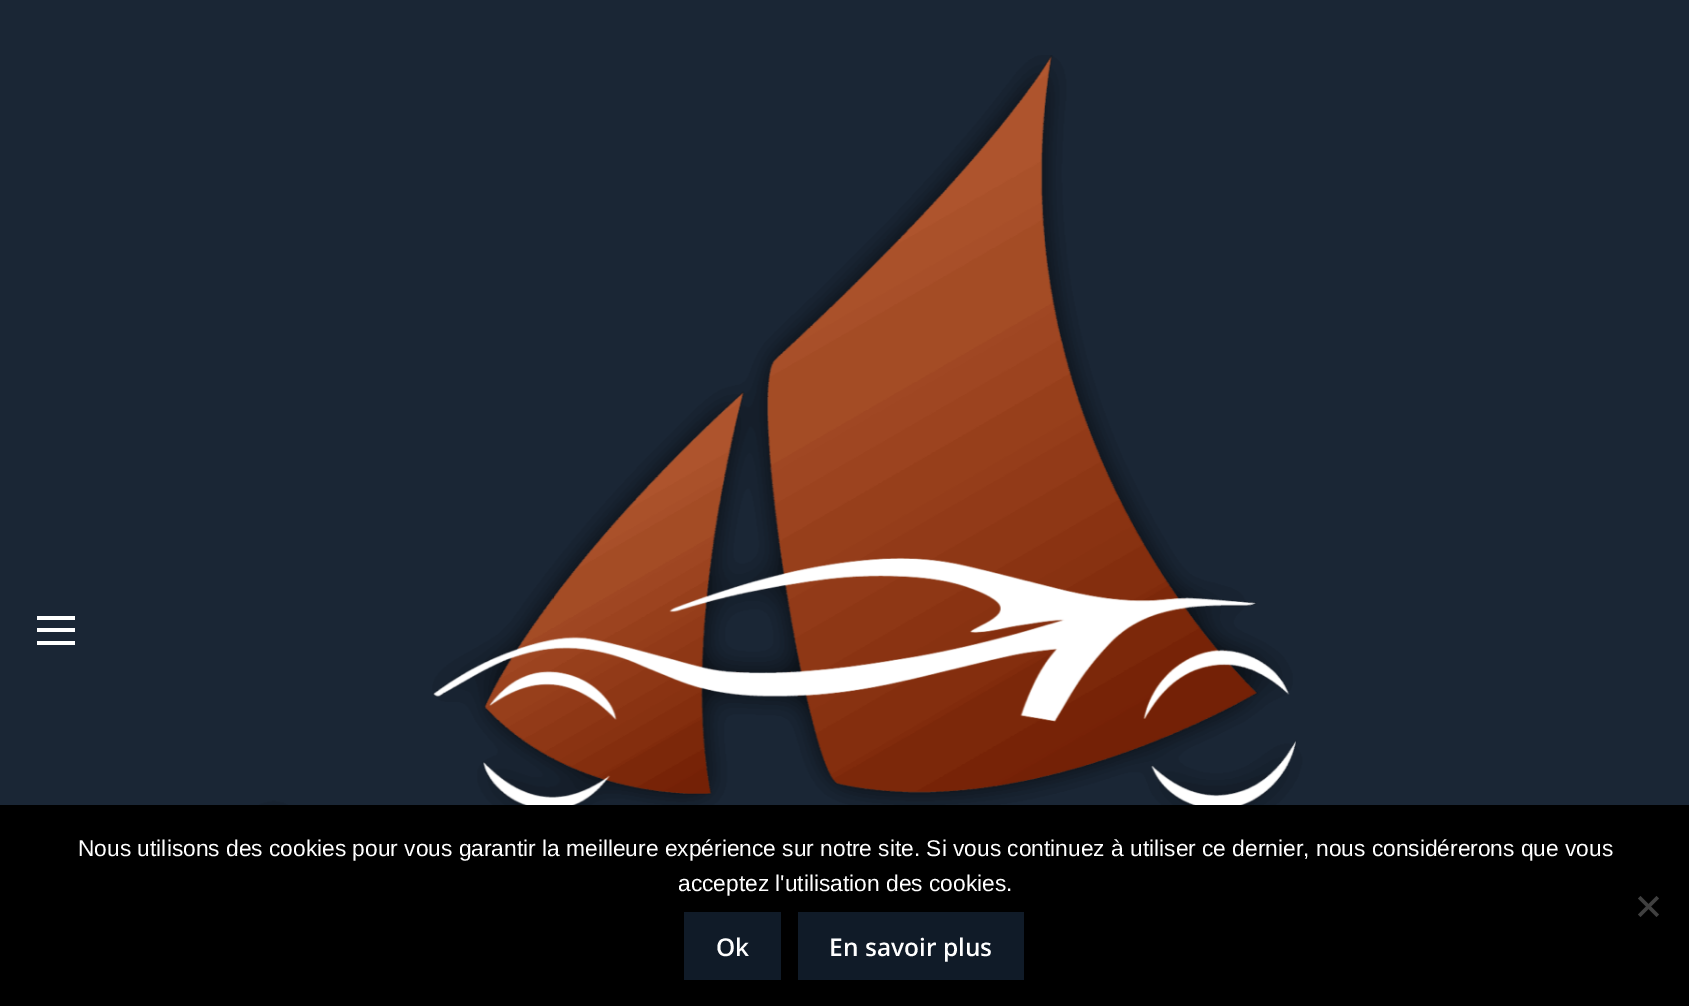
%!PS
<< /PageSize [1689 1006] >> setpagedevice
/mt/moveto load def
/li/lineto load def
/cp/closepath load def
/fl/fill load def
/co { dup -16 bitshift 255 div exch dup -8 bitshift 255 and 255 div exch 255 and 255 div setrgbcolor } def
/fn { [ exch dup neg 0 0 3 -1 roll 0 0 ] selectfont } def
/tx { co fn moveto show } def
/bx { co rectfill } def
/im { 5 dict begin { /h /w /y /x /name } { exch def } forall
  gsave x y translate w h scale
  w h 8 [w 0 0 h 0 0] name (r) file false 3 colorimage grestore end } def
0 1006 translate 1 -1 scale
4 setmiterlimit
0 0 1689 1006 16#1A2635 bx
37 616 38 4 16#FFFFFF bx
37 628 38 4 16#FFFFFF bx
37 641 38 4 16#FFFFFF bx
(media/1.raw) 259 55 1044 750 im
0 805 1689 201 16#000000 bx
16#404040 co
1656.5 896 mt 1659 898.5 li 1640.5 917 li 1638 914.5 li cp fl
1638 898.5 mt 1640.5 896 li 1659 914.5 li 1656.5 917 li cp fl
684 912 97 68 16#101B28 bx
798 912 226 68 16#101B28 bx
(Nous utilisons des cookies pour vous garantir la meilleure expérience sur notre site. Si vous continuez à utiliser ce dernier, nous considérerons que vous) 78 856 /LiberationSans-Regular 22.75 16#FFFFFF tx
(acceptez l'utilisation des cookies.) 678 891 /LiberationSans-Regular 22.75 16#FFFFFF tx
(Ok) 716 956 /OpenSans-SemiBold 24.5 16#FFFFFF tx
(En savoir plus) 829 956 /OpenSans-SemiBold 24.5 16#FFFFFF tx
showpage
